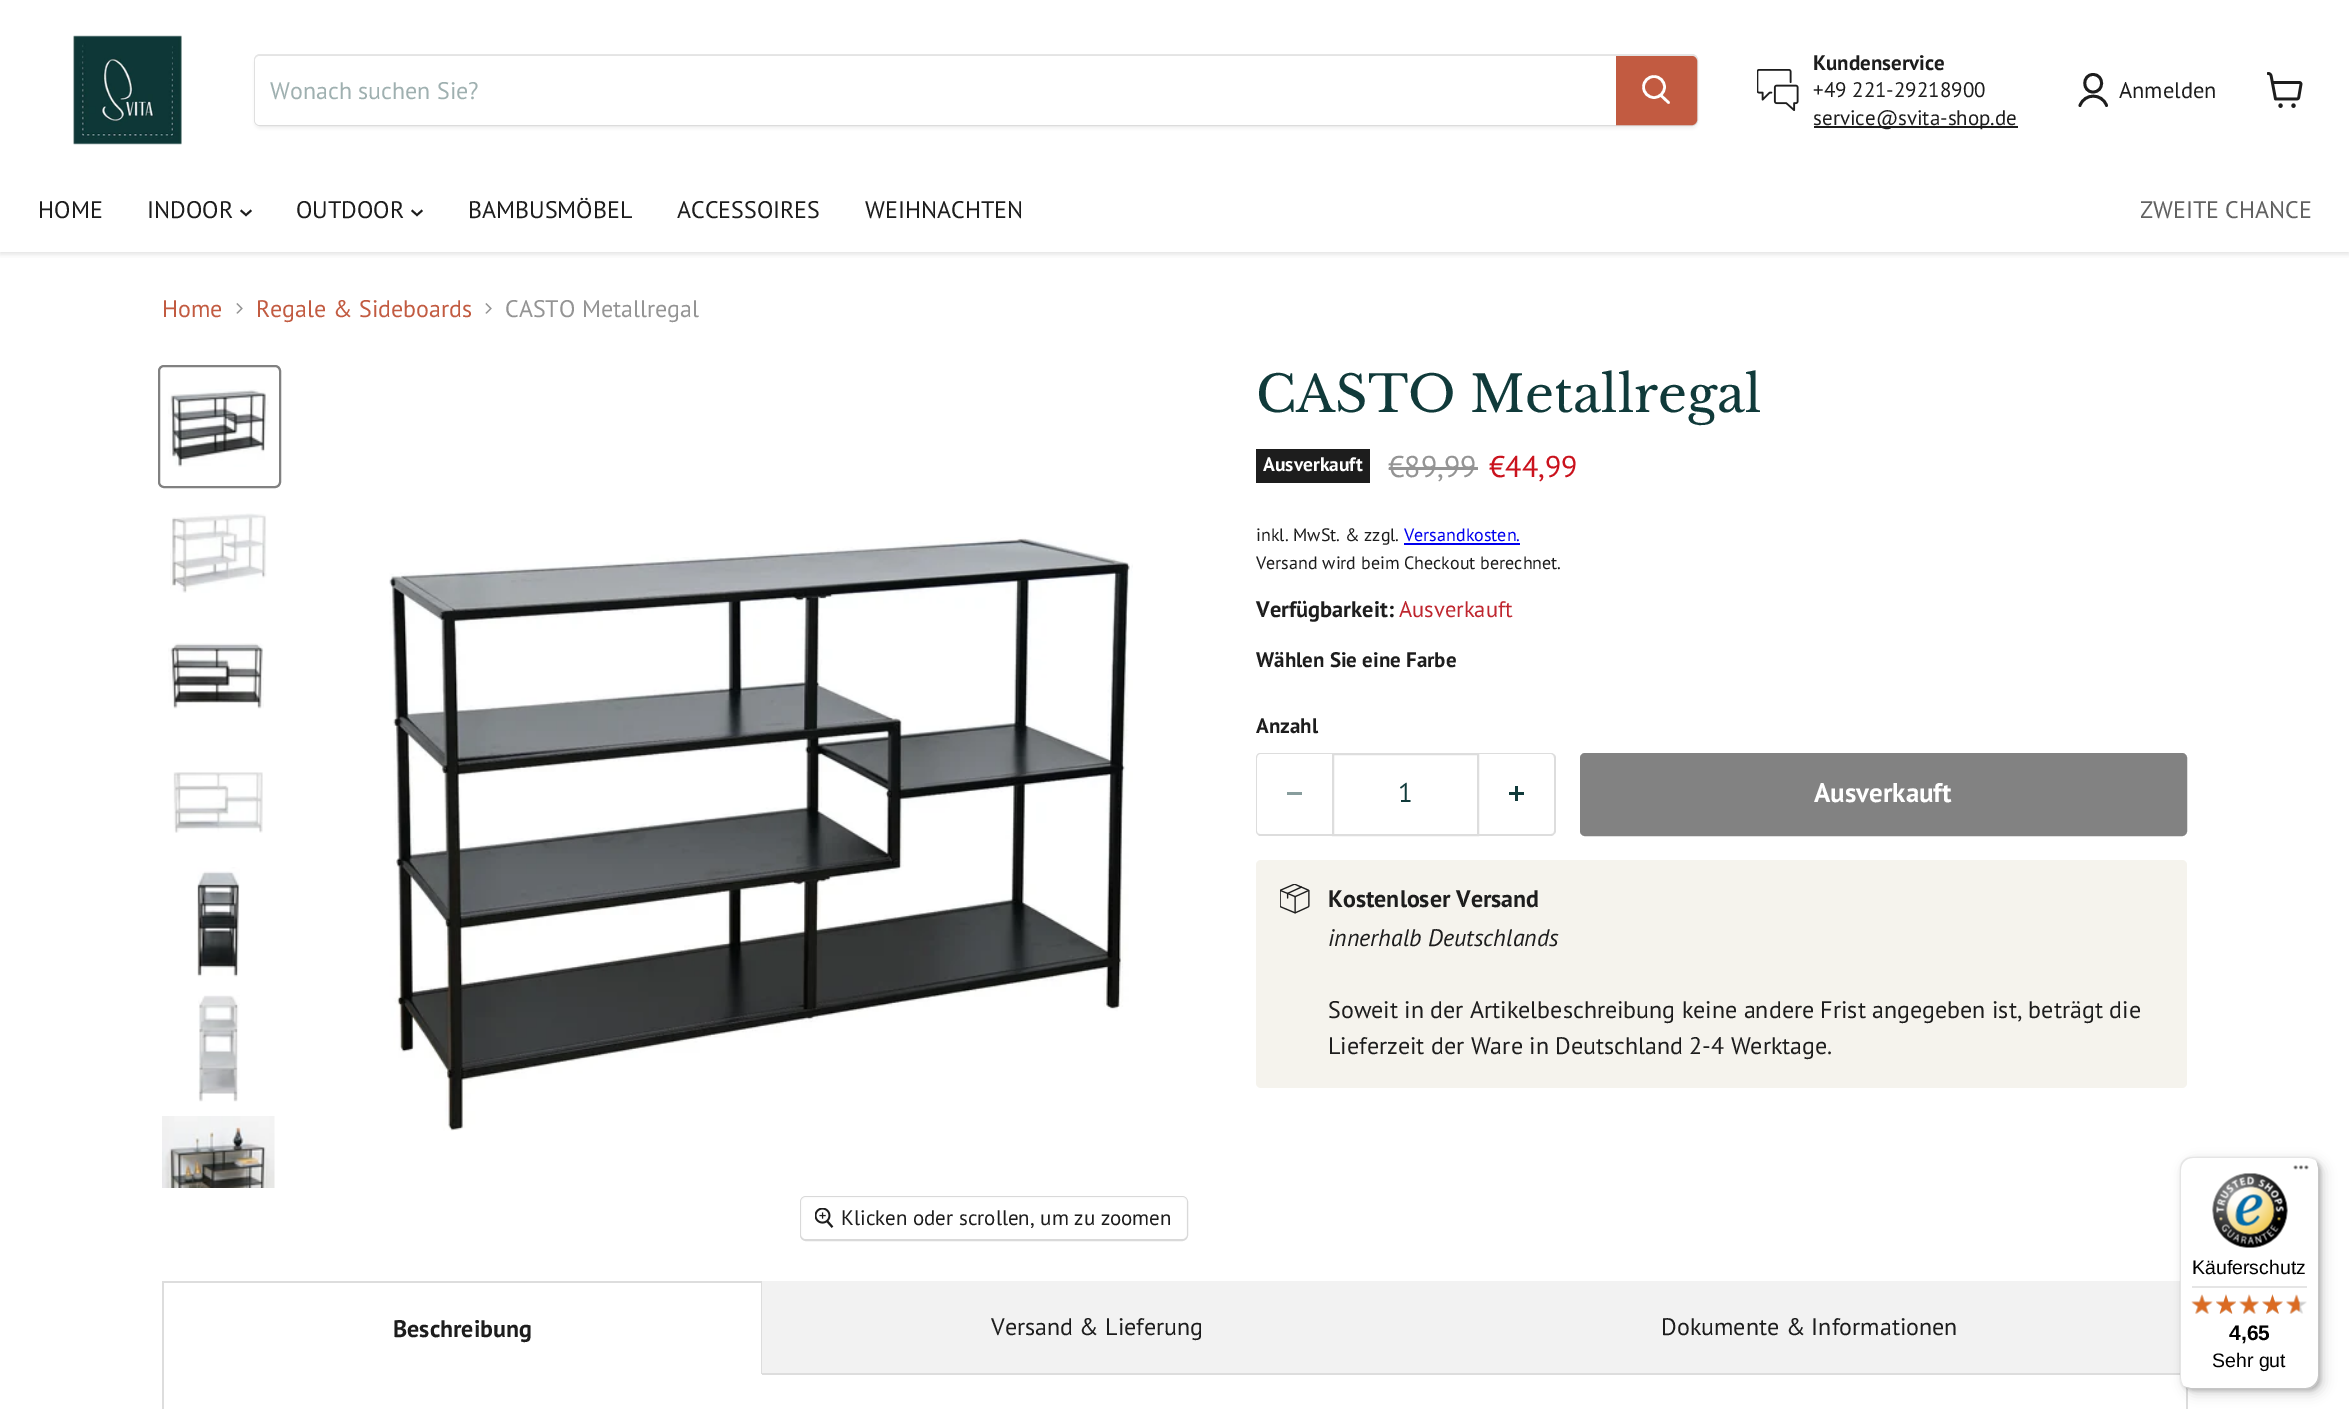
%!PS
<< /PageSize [2349 1409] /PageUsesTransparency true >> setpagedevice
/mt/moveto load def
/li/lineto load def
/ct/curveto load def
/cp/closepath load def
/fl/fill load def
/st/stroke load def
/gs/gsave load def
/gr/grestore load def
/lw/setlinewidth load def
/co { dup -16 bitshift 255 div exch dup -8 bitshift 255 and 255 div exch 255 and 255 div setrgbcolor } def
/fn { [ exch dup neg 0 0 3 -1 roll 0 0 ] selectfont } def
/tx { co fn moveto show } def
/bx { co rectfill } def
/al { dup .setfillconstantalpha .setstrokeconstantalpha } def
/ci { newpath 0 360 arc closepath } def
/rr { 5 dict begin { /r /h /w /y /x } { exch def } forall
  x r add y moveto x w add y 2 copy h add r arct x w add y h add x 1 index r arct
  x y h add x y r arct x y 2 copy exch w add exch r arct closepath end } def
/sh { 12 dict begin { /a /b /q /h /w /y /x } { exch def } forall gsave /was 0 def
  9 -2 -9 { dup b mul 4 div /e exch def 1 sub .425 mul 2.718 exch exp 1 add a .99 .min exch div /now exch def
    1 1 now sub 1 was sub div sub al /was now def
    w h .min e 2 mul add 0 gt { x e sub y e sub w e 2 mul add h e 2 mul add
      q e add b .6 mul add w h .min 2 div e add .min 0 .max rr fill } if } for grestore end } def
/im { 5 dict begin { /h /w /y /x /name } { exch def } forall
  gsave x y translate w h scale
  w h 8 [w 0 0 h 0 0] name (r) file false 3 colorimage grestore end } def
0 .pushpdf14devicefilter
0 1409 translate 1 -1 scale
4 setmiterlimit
0 0 2349 1409 16#FFFFFF bx
gs
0 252 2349 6 rectclip
16#808080 co
0 2 2349 252 0 3 .25 sh
gr
(media/1.raw) 73 35 109 110 im
16#808080 co
254 57 1444 72 6 2 .11 sh
0.2 al
2 lw
255 55 1442 70 5 rr st
1 al
16#FFFFFF co
260 56 mt 1616 56 li 1616 125 li 260 125 li 257 125 255 123 255 120 ct 255 61 li 255 58 257 56 260 56 ct cp fl
16#C25B41 co
1617 57 mt 1692 57 li 1694 57 1696 59 1696 61 ct 1696 120 li 1696 122 1694 124 1692 124 ct 1617 124 li cp gs fl gr
st
16#FFFFFF co
2.6 lw
1 setlinecap
1668.5 102.5 mt 1661 95.5 li st
0 setlinecap
1654 87 10.5 ci st
(media/2.raw) 1757 69 42 42 im
1814 126 204 2 16#1D1D1D bx
2.8 lw
1 setlinecap
1 setlinejoin
2093 92 mt 2104.5 92 2104.5 74.5 2093 74.5 ct 2082 74.5 2082 92 2093 92 ct cp 2106.5 105.5 mt 2102 93 2084.5 93 2080 105.5 ct st
(media/3.raw) 2267 72 36 36 im
1.9 lw
2 setlinecap
0 setlinejoin
246 215 mt 250.5 211 li 246 215 mt 241.5 211 li st
417 215 mt 421.5 211 li 417 215 mt 412.5 211 li st
(media/4.raw) 236 303 7 11 im
(media/5.raw) 485 303 7 11 im
1256 449 114 34 16#1D1D1D bx
1389 467 89 3 16#949494 bx
1404 543 116 2 16#0000EE bx
16#DDDDDD co
1260 753 mt 1332 753 li 1332 836 li 1260 836 li 1258 836 1256 833 1256 831 ct 1256 758 li 1256 755 1258 753 1260 753 ct cp 1260 754 mt 1332 754 li 1332 834 li 1260 834 li 1258 834 1257 833 1257 831 ct 1257 758 li 1257 756 1258 754 1260 754 ct cp eofill
1287 792 15 3 16#889D9D bx
16#DDDDDD co
2 lw
0 setlinecap
1333 754 145 81 rectstroke
1479 753 mt 1551 753 li 1553 753 1556 755 1556 758 ct 1556 831 li 1556 833 1553 836 1551 836 ct 1479 836 li cp 1479 754 mt 1551 754 li 1553 754 1554 756 1554 758 ct 1554 831 li 1554 833 1553 834 1551 834 ct 1479 834 li cp eofill
(media/6.raw) 1509 786 15 15 im
16#828282 co
1581 754 605 81 4 rr gs fl gr
st
16#F5F3ED co
1256 860 931 228 5 rr fl
(media/7.raw) 1280 884 30 30 im
16#818181 co
159 366 121 121 5 rr st
(media/8.raw) 168 389 102 78 im
(media/9.raw) 170 513 97 80 im
(media/10.raw) 168 643 96 66 im
(media/11.raw) 173 772 90 61 im
(media/12.raw) 197 867 43 110 im
(media/13.raw) 198 995 42 107 im
(media/14.raw) 162 1116 113 72 im
(media/15.raw) 389 537 744 594 im
16#D9D9D9 co
801 1197 386 43 5 rr st
0.9 al
16#FFFFFF co
801 1197 386 42 5 rr fl
1 al
(media/16.raw) 815 1208 19 20 im
162 1281 600 2 16#DDDDDD bx
761 1281 1 93 16#DDDDDD bx
162 1281 2 128 16#DDDDDD bx
762 1281 1418 92 16#F2F2F2 bx
762 1373 1425 2 16#DDDDDD bx
2186 1387 2 22 16#DDDDDD bx
16#000000 co
2184 1161 140 233 12 6 .15 sh
2181 1158 140 233 12 1.5 .15 sh
16#FFFFFF co
2180 1157 139 232 12 rr fl
16#E5E5E5 co
2193 1158 mt 2308 1158 li 2311 1158 2313 1159 2315 1160 ct 2313 1158 2310 1157 2307 1157 ct 2192 1157 li 2185 1157 2180 1162 2180 1169 ct 2180 1377 li 2180 1380 2181 1383 2183 1385 ct 2182 1383 2181 1381 2181 1378 ct 2181 1170 li 2181 1163 2186 1158 2193 1158 ct cp fl
0.2 al
16#000000 co
2186 1387 mt 2187 1388 2190 1389 2192 1389 ct 2307 1389 li 2314 1389 2319 1384 2319 1377 ct 2319 1169 li 2319 1167 2318 1164 2317 1163 ct 2318 1167 li 2318 1376 li 2318 1382 2312 1388 2306 1388 ct 2190 1388 li cp fl
16#323232 co
2184 1386 mt 2186 1388 2189 1389 2192 1389 ct 2307 1389 li 2314 1389 2319 1384 2319 1377 ct 2319 1169 li 2319 1166 2318 1163 2316 1161 ct 2317 1163 2318 1165 2318 1168 ct 2318 1376 li 2318 1383 2313 1388 2306 1388 ct 2191 1388 li 2188 1388 2186 1387 2184 1386 ct cp fl
0.3 al
16#FFFFFF co
2184 1386 mt 2186 1388 2189 1389 2192 1389 ct 2307 1389 li 2314 1389 2319 1384 2319 1377 ct 2319 1169 li 2319 1166 2318 1163 2316 1161 ct 2317 1163 2318 1165 2318 1168 ct 2318 1376 li 2318 1383 2313 1388 2306 1388 ct 2191 1388 li 2188 1388 2186 1387 2184 1386 ct cp fl
1 al
(media/17.raw) 2293 1165 16 5 im
(media/18.raw) 2212 1173 76 75 im
2192 1286 115 2 16#E5E5E5 bx
(media/24.raw) 2192 1295 20 19 im
(media/19.raw) 2191 1294 22 20 im
(media/25.raw) 2216 1294 20 20 im
(media/20.raw) 2216 1294 20 20 im
(media/26.raw) 2239 1294 20 20 im
(media/21.raw) 2239 1294 20 20 im
(media/27.raw) 2262 1294 21 20 im
(media/22.raw) 2262 1294 21 20 im
(media/28.raw) 2286 1295 21 19 im
(media/23.raw) 2286 1294 14 20 im
(Wonach suchen Sie?) 270 99 /PTSans-Regular 24 16#9FB0B0 tx
(Kundenservice) 1813 70 /PTSans-Bold 21 16#1D1D1D tx
(+49 221-29218900) 1813 97 /PTSans-Regular 21 16#1D1D1D tx
(service@svita-shop.de) 1813 125 /PTSans-Regular 21 16#1D1D1D tx
(Anmelden) 2119 98 /PTSans-Regular 22.5 16#1D1D1D tx
(HOME) 38 218 /PTSans-Regular 24 16#1D1D1D tx
(INDOOR) 147 218 /PTSans-Regular 24 16#1D1D1D tx
(OUTDOOR) 296 218 /PTSans-Regular 24 16#1D1D1D tx
(BAMBUSMÖBEL) 468 218 /PTSans-Regular 24 16#1D1D1D tx
(ACCESSOIRES) 677 218 /PTSans-Regular 24 16#1D1D1D tx
(WEIHNACHTEN) 865 218 /PTSans-Regular 24 16#1D1D1D tx
(ZWEITE CHANCE) 2140 218 /PTSans-Regular 24 16#616161 tx
(Home) 162 317 /PTSans-Regular 24 16#C25B41 tx
(Regale & Sideboards) 256 317 /PTSans-Regular 24 16#C25B41 tx
(CASTO Metallregal) 505 317 /PTSans-Regular 24 16#949494 tx
(CASTO Metallregal) 1256 412 /LibreBaskerville-Regular 50.4 16#103A3A tx
(Ausverkauft) 1263 471 /PTSans-Bold 19.5 16#FFFFFF tx
(€89,99) 1388 477 /PTSans-Regular 30 16#949494 tx
(€44,99) 1489 477 /PTSans-Regular 30 16#CA121D tx
(inkl. MwSt. & zzgl.) 1256 541 /PTSans-Regular 18 16#1D1D1D tx
(Versandkosten.) 1404 541 /PTSans-Regular 18 16#0000EE tx
(Versand wird beim Checkout berechnet.) 1256 569 /PTSans-Regular 18 16#1D1D1D tx
(Verfügbarkeit:) 1256 617 /PTSans-Bold 22.5 16#1D1D1D tx
(Ausverkauft) 1399 617 /PTSans-Regular 22.5 16#BF262F tx
(Wählen Sie eine Farbe) 1256 667 /PTSans-Bold 21 16#1D1D1D tx
(Anzahl) 1256 733 /PTSans-Bold 21 16#1D1D1D tx
(1) 1398 802 /PTSans-Regular 27 16#103A3A tx
(Ausverkauft) 1814 802 /PTSans-Bold 27 16#FFFFFF tx
(Kostenloser Versand) 1328 907 /PTSans-Bold 24 16#1D1D1D tx
(innerhalb Deutschlands) 1328 946 /PTSans-Italic 24 16#1D1D1D tx
(Soweit in der Artikelbeschreibung keine andere Frist angegeben ist, beträgt die) 1328 1018 /PTSans-Regular 24 16#1D1D1D tx
(Lieferzeit der Ware in Deutschland 2-4 Werktage.) 1328 1054 /PTSans-Regular 24 16#1D1D1D tx
(Klicken oder scrollen, um zu zoomen) 841 1225 /PTSans-Regular 21 16#1D1D1D tx
(Beschreibung) 393 1337 /PTSans-Bold 24 16#1D1D1D tx
(Versand & Lieferung) 991 1335 /PTSans-Regular 24 16#1D1D1D tx
(Dokumente & Informationen) 1661 1335 /PTSans-Regular 24 16#1D1D1D tx
(Käuferschutz) 2192 1274 /LiberationSans-Regular 19.5 16#000000 tx
(4,65) 2229 1340 /LiberationSans-Bold 21 16#000000 tx
(Sehr gut) 2212 1367 /LiberationSans-Regular 19.5 16#000000 tx
.poppdf14devicefilter showpage
